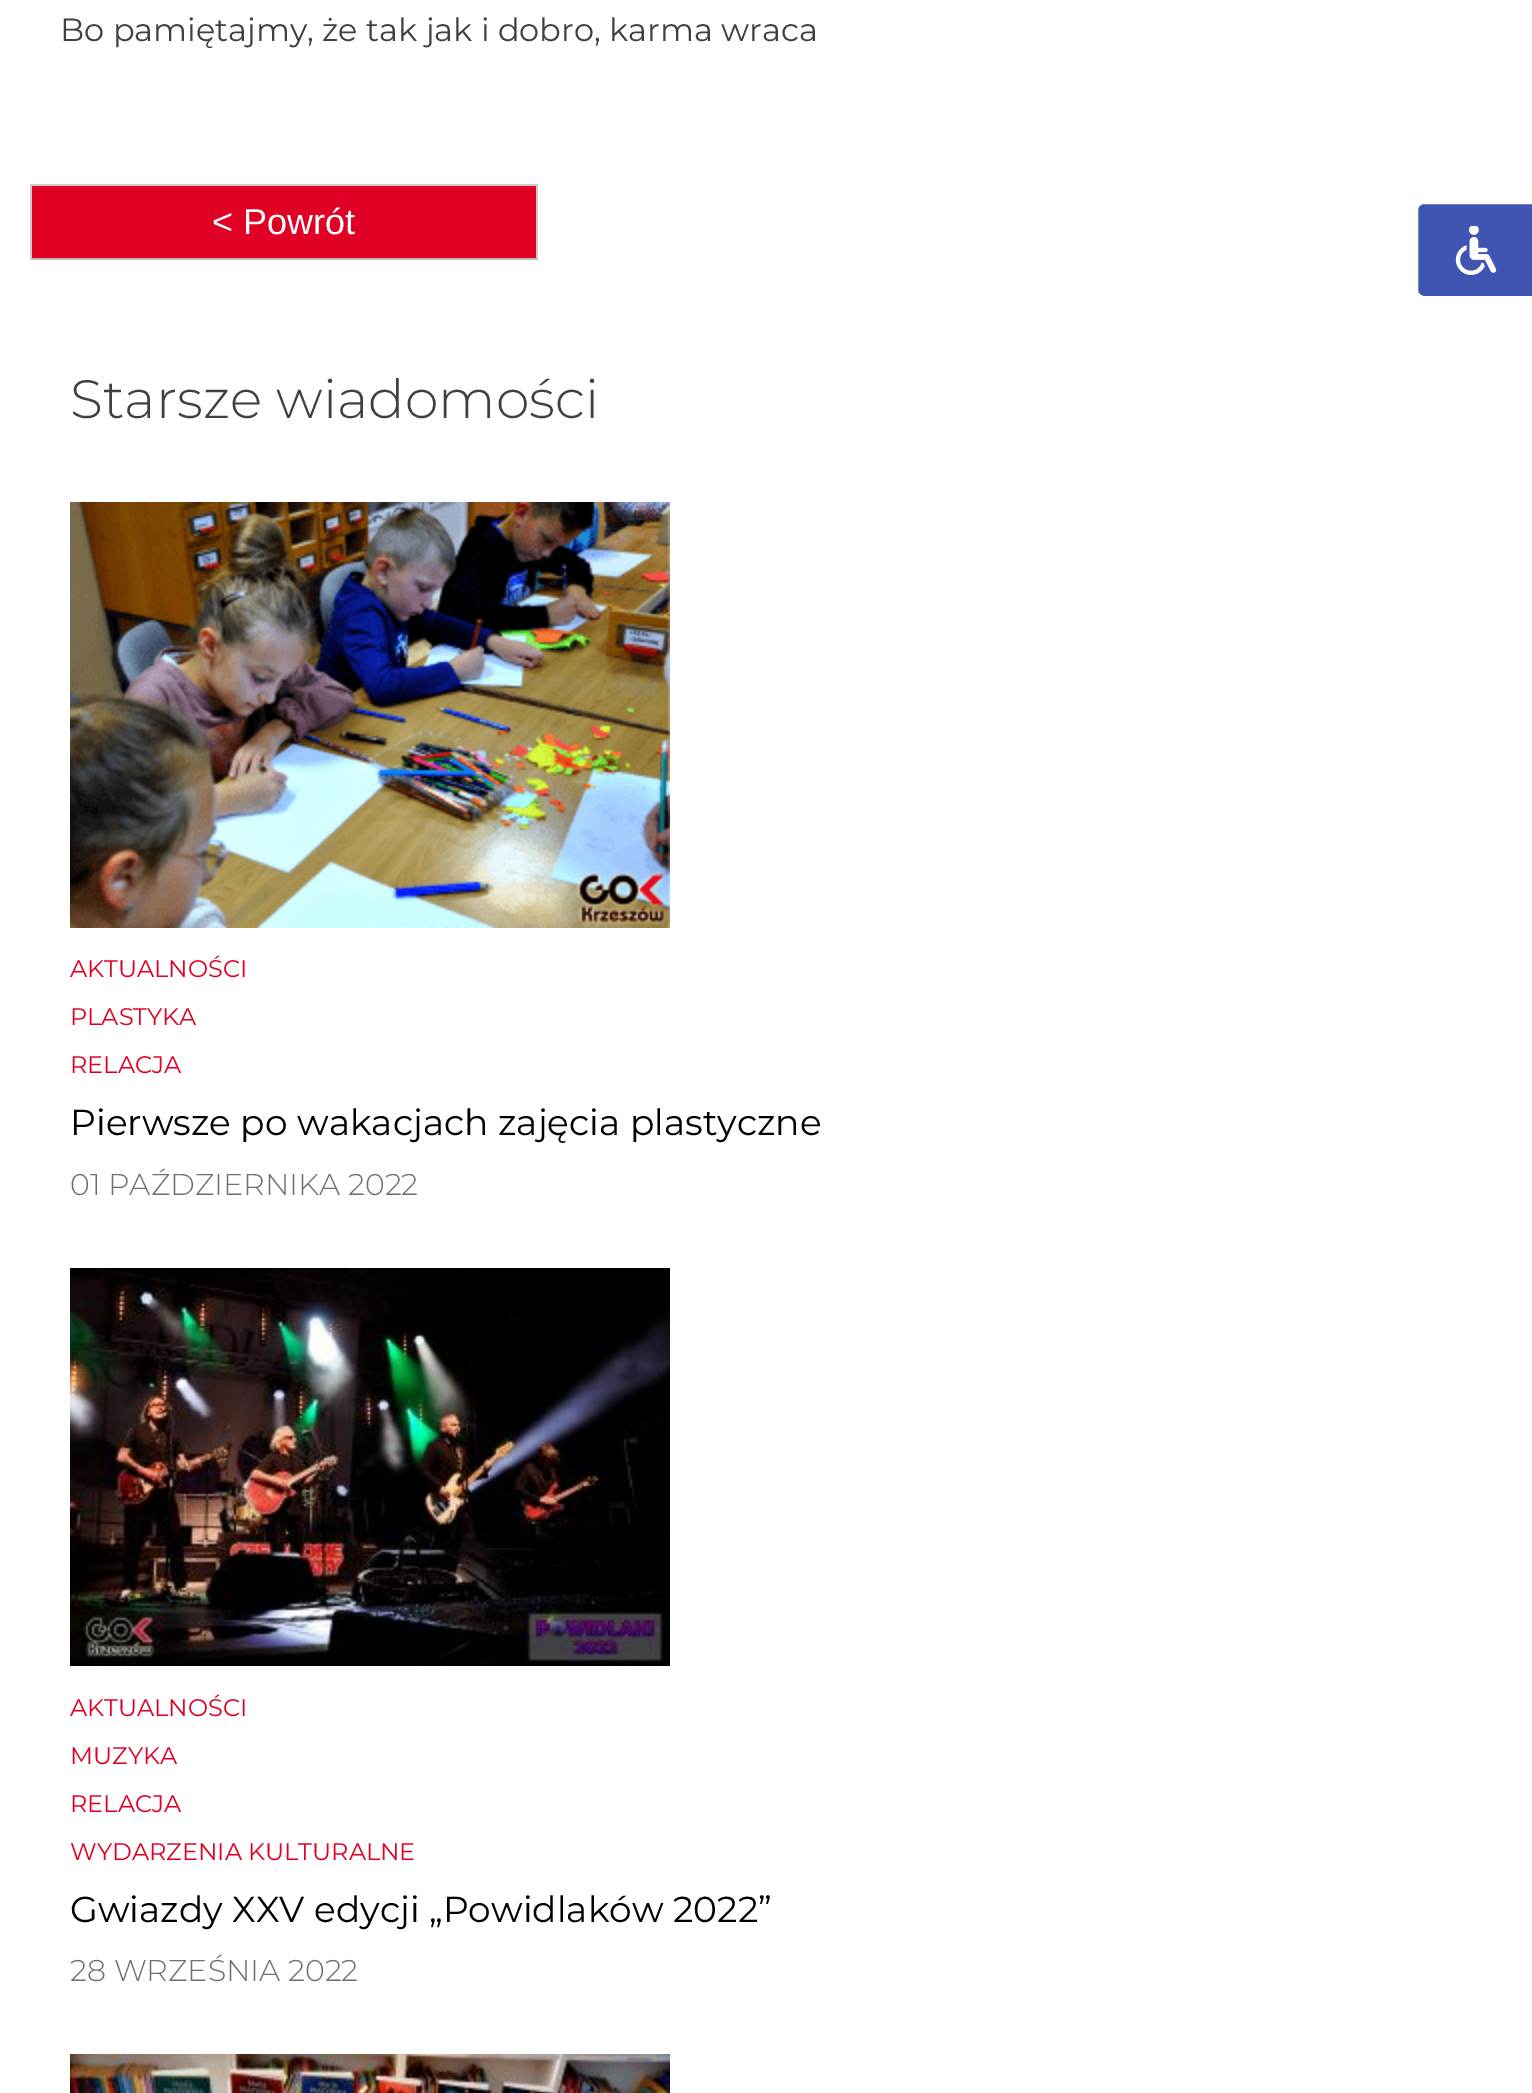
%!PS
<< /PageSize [1532 2093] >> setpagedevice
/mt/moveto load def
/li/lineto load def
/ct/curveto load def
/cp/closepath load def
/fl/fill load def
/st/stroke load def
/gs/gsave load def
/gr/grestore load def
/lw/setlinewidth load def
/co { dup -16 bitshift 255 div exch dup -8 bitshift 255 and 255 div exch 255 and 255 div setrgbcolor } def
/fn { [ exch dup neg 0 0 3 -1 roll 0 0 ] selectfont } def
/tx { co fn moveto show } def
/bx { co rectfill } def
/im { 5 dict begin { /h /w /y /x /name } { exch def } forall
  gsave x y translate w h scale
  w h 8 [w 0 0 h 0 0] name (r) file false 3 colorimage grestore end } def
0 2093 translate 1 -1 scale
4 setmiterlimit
0 0 1532 2093 16#FFFFFF bx
32 186 504 72 16#DF0024 bx
30 184 508 2 16#CCCCCC bx
536 184 2 76 16#CCCCCC bx
30 258 508 2 16#BBBBBB bx
30 184 2 76 16#CCCCCC bx
(media/1.raw) 70 502 600 426 im
(media/2.raw) 70 1268 600 398 im
(media/3.raw) 70 2054 600 39 im
16#4054B2 co
1424 202 mt 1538 202 li 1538 298 li 1424 298 li 1419.5 298 1416 294.5 1416 290 ct 1416 210 li 1416 205.5 1419.5 202 1424 202 ct cp gs fl gr
16#FFFFFF co
4 lw
st
(media/4.raw) 1455 226 42 49 im
(Bo pamiętajmy, że tak jak i dobro, karma wraca) 60 41 /Montserrat-Regular 32 16#404040 tx
(< Powrót) 212 234 /LiberationSans-Regular 36 16#FFFFFF tx
(Starsze wiadomości) 70 418 /Montserrat-Light 54 16#404040 tx
(AKTUALNOŚCI) 70 977 /Montserrat-Regular 24 16#DF0024 tx
(PLASTYKA) 70 1025 /Montserrat-Regular 24 16#DF0024 tx
(RELACJA) 70 1073 /Montserrat-Regular 24 16#DF0024 tx
(Pierwsze po wakacjach zajęcia plastyczne) 70 1135 /Montserrat-Regular 36 16#000000 tx
(01 PAŹDZIERNIKA 2022) 70 1195 /Montserrat-Light 30 16#706F6F tx
(AKTUALNOŚCI) 70 1716 /Montserrat-Regular 24 16#DF0024 tx
(MUZYKA) 70 1764 /Montserrat-Regular 24 16#DF0024 tx
(RELACJA) 70 1812 /Montserrat-Regular 24 16#DF0024 tx
(WYDARZENIA KULTURALNE) 70 1860 /Montserrat-Regular 24 16#DF0024 tx
(Gwiazdy XXV edycji „Powidlaków 2022”) 70 1922 /Montserrat-Regular 36 16#000000 tx
(28 WRZEŚNIA 2022) 70 1981 /Montserrat-Light 30 16#706F6F tx
showpage
